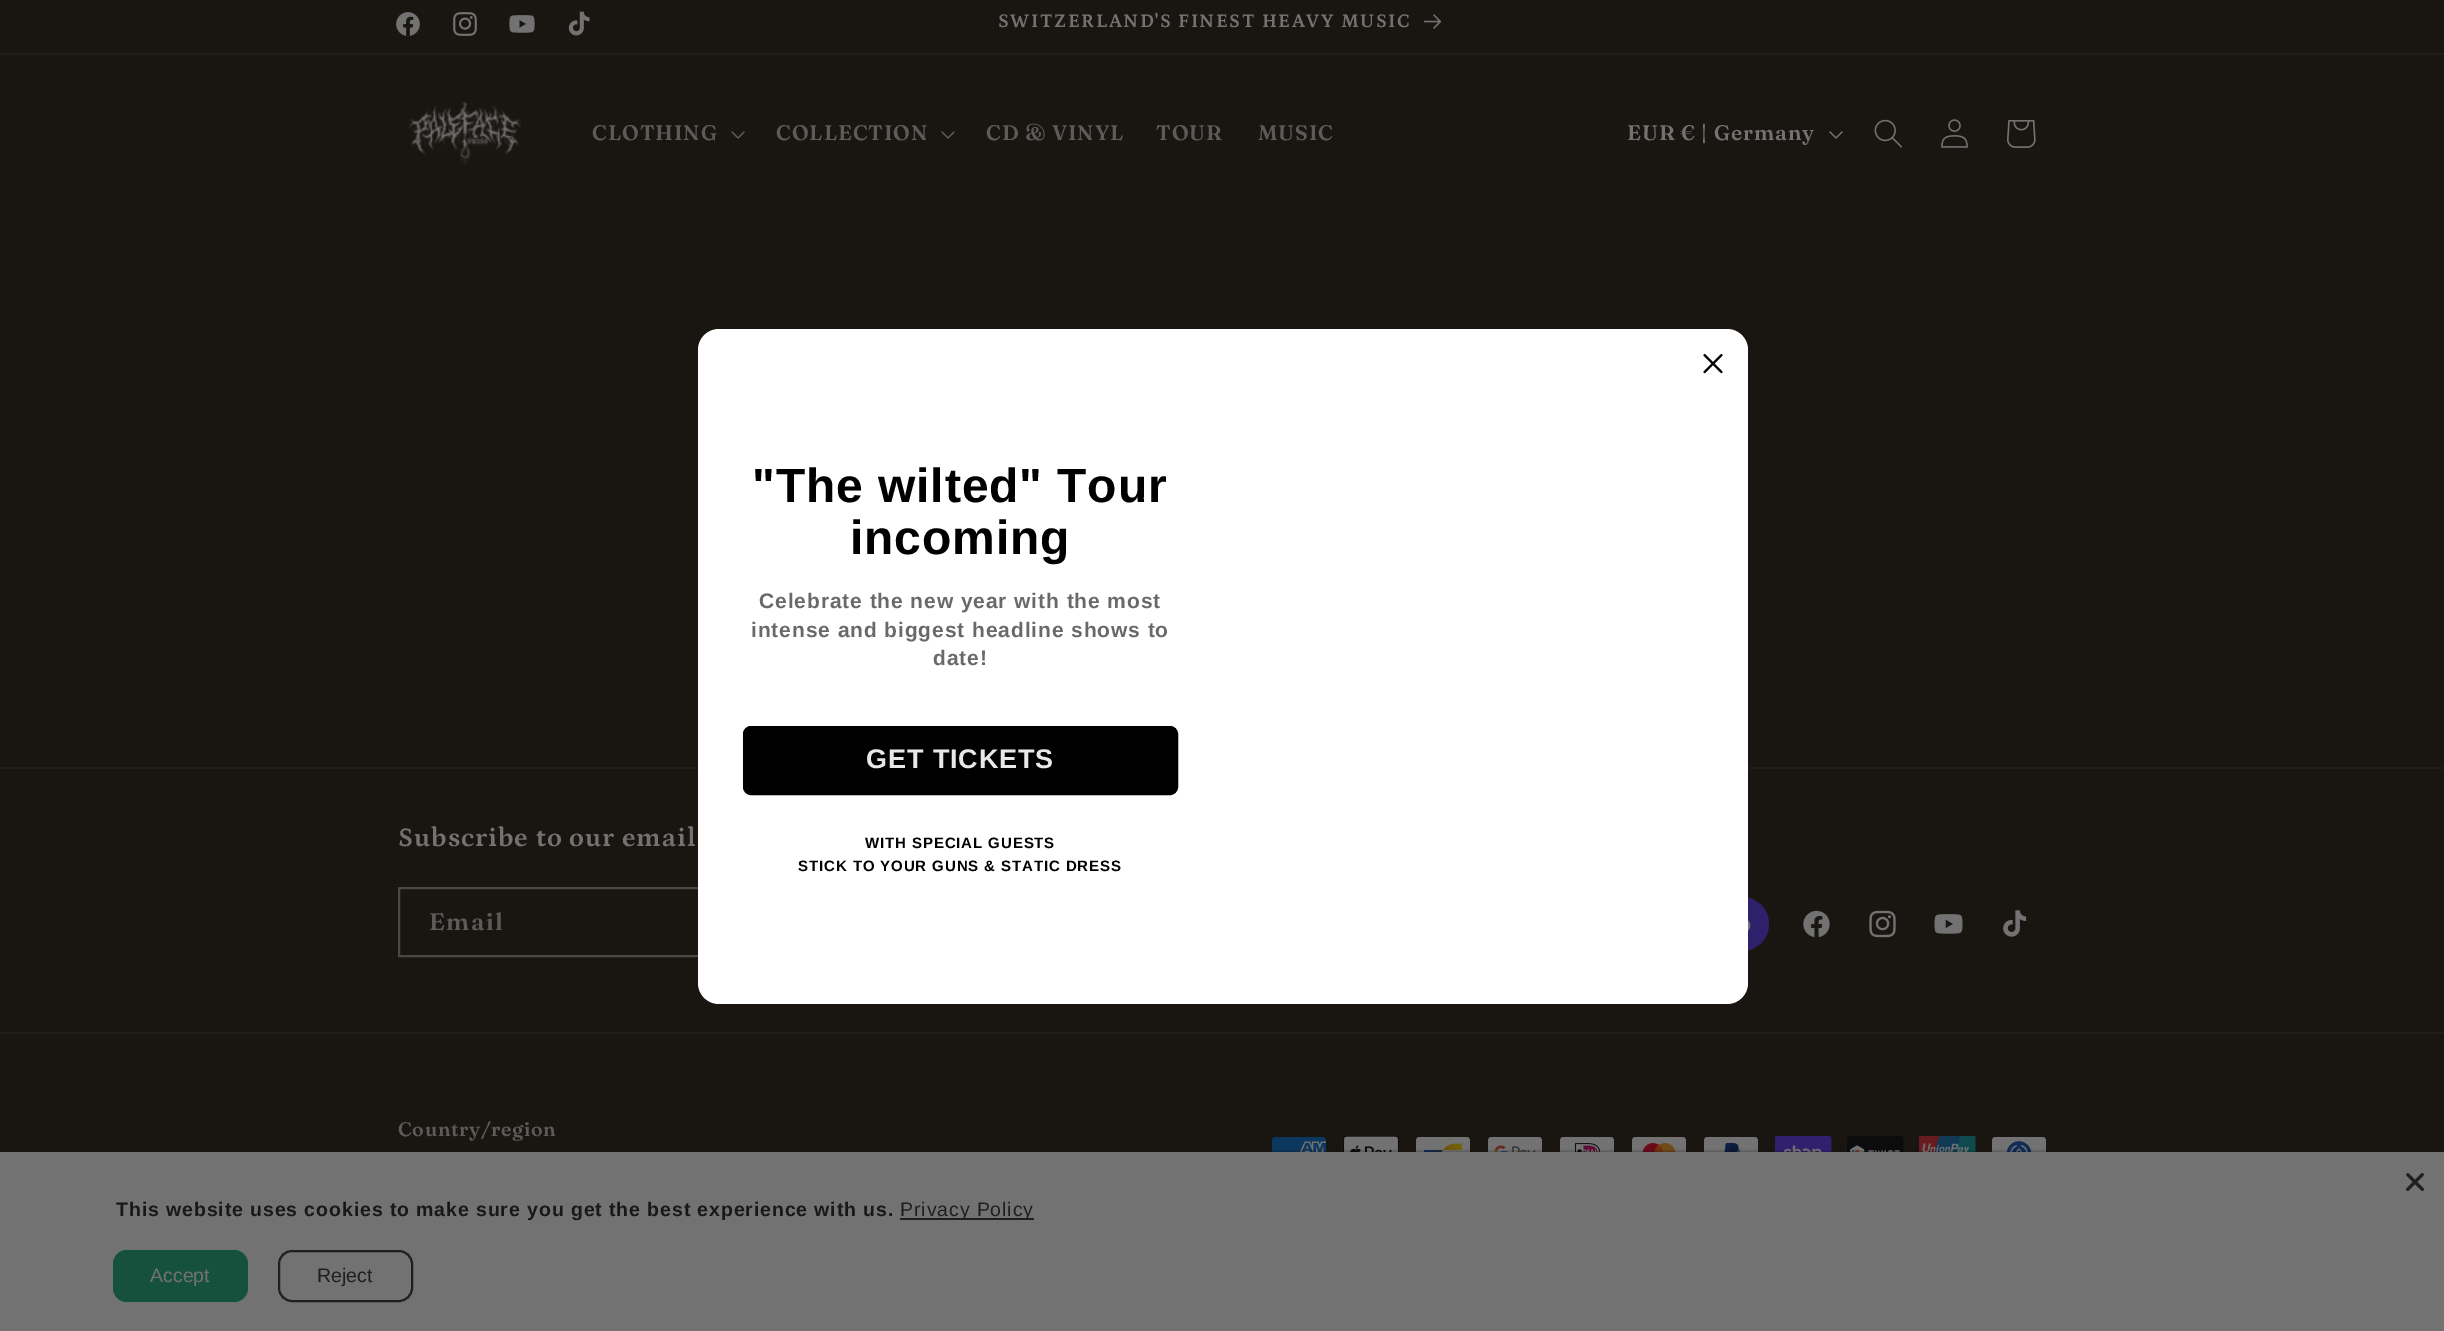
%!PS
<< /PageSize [2444 1331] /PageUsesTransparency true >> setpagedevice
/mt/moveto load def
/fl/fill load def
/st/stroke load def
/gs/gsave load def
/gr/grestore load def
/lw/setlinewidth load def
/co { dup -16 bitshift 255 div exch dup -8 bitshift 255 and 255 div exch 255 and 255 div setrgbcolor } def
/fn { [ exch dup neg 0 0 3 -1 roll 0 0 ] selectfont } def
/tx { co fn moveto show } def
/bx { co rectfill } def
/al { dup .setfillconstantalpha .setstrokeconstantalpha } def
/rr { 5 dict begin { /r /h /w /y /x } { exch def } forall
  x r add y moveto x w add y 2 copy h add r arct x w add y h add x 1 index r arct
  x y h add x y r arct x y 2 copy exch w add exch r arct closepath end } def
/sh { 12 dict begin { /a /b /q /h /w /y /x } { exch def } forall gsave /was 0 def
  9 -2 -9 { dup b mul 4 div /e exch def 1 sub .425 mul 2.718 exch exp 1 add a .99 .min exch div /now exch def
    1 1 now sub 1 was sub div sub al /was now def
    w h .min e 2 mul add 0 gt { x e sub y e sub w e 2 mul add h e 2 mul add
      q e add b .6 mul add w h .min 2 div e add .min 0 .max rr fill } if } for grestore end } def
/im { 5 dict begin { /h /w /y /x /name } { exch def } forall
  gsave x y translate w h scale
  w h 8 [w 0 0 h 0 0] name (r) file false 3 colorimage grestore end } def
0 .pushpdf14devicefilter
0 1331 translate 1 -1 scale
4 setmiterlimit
0 0 2444 1331 16#191510 bx
0 53 2444 2 16#201D18 bx
(media/1.raw) 396 12 24 24 im
(media/2.raw) 453 12 24 24 im
(media/3.raw) 509 15 26 18 im
(media/4.raw) 568 11 22 25 im
(media/5.raw) 1424 14 18 15 im
(media/6.raw) 409 101 112 64 im
(media/7.raw) 731 131 14 8 im
(media/7.raw) 941 131 14 8 im
(media/8.raw) 1829 131 14 8 im
(media/9.raw) 1874 119 28 29 im
(media/10.raw) 1941 119 27 29 im
(media/11.raw) 2007 120 29 28 im
0 767 2444 2 16#201D18 bx
16#4A4846 co
2 lw
399 888 538 68 rectstroke
16#2E206A co
1529 897 240 54 27 rr fl
16#FFFFFF co
698 329 1050 675 21 rr fl
(media/12.raw) 1703 354 20 20 im
16#000000 co
744.5 727.5 432 66 6.5 rr gs fl gr
3 lw
st
(media/13.raw) 1748 920 3 11 im
(media/14.raw) 1803 910 27 28 im
(media/15.raw) 1869 910 27 28 im
(media/16.raw) 1934 914 29 20 im
(media/17.raw) 2003 910 24 27 im
0 1032 2444 2 16#201D18 bx
(media/18.raw) 1272 1137 54 15 im
(media/19.raw) 1343 1136 56 16 im
(media/20.raw) 1416 1137 54 15 im
(media/21.raw) 1488 1137 54 15 im
(media/22.raw) 1560 1137 54 15 im
(media/23.raw) 1632 1137 54 15 im
(media/24.raw) 1704 1137 54 15 im
(media/25.raw) 1775 1136 57 16 im
(media/26.raw) 1847 1136 57 16 im
(media/27.raw) 1919 1136 57 16 im
(media/28.raw) 1992 1137 54 15 im
16#0C0C0C co
0 1152 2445 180 0 1.5 .5 sh
0 1152 2444 179 16#727272 bx
(media/29.raw) 2406 1173 18 18 im
900 1218 134 2 16#1E201F bx
16#16513D co
113 1250 135 52 14 rr fl
16#1E201F co
2 lw
279 1251 133 50 13 rr st
/Petrona-Bold 19.5 fn
16#727272 co
998 27 mt 1.5 0 (SWITZERLAND'S FINEST HEAVY MUSIC) ashow
/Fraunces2-SemiBold 21 fn
16#5C5B5A co
592 140 mt .9 0 (CLOTHING) ashow
776 140 mt .9 0 (COLLECTION) ashow
986 140 mt .9 0 (CD & VINYL) ashow
1156 140 mt .9 0 (TOUR) ashow
1258 140 mt .9 0 (MUSIC) ashow
16#727272 co
1627 140 mt .9 0 (EUR) ashow
1680 140 mt .9 0 (€ | Germany) ashow
/LiberationSans-Bold 48 fn
16#000000 co
752 502 mt .9 0 ("The wilted" Tour) ashow
850 554 mt .9 0 (incoming) ashow
/LiberationSans-Bold 21 fn
16#696969 co
759 608 mt .9 0 (Celebrate the new year with the most) ashow
751 637 mt .9 0 (intense and biggest headline shows to) ashow
933 665 mt .9 0 (date!) ashow
/LiberationSans-Bold 27 fn
16#E8E8E8 co
866 768 mt .9 0 (GET TICKETS) ashow
/LiberationSans-Bold 15 fn
16#000000 co
865 848 mt .9 0 (WITH SPECIAL GUESTS) ashow
798 871 mt .9 0 (STICK TO YOUR GUNS & STATIC DRESS) ashow
/Petrona-Bold 27 fn
16#727272 co
398 846 mt .9 0 (Subscribe to our email) ashow
/Fraunces-SemiBold 24 fn
16#5C5B5A co
429 930 mt 1.5 0 (Email) ashow
/Fraunces2-SemiBold 19.5 fn
398 1136 mt .6 0 (Country/region) ashow
/LiberationSans-Bold 19.5 fn
16#181818 co
116 1216 mt .9 0 (This website uses cookies to make sure you get the best experience with us.) ashow
/LiberationSans-Regular 19.5 fn
16#1E201F co
900 1216 mt .9 0 (Privacy Policy) ashow
(Accept) 150 1282 /LiberationSans-Regular 19.5 16#727272 tx
(Reject) 317 1282 /LiberationSans-Regular 19.5 16#1E201F tx
.poppdf14devicefilter showpage
